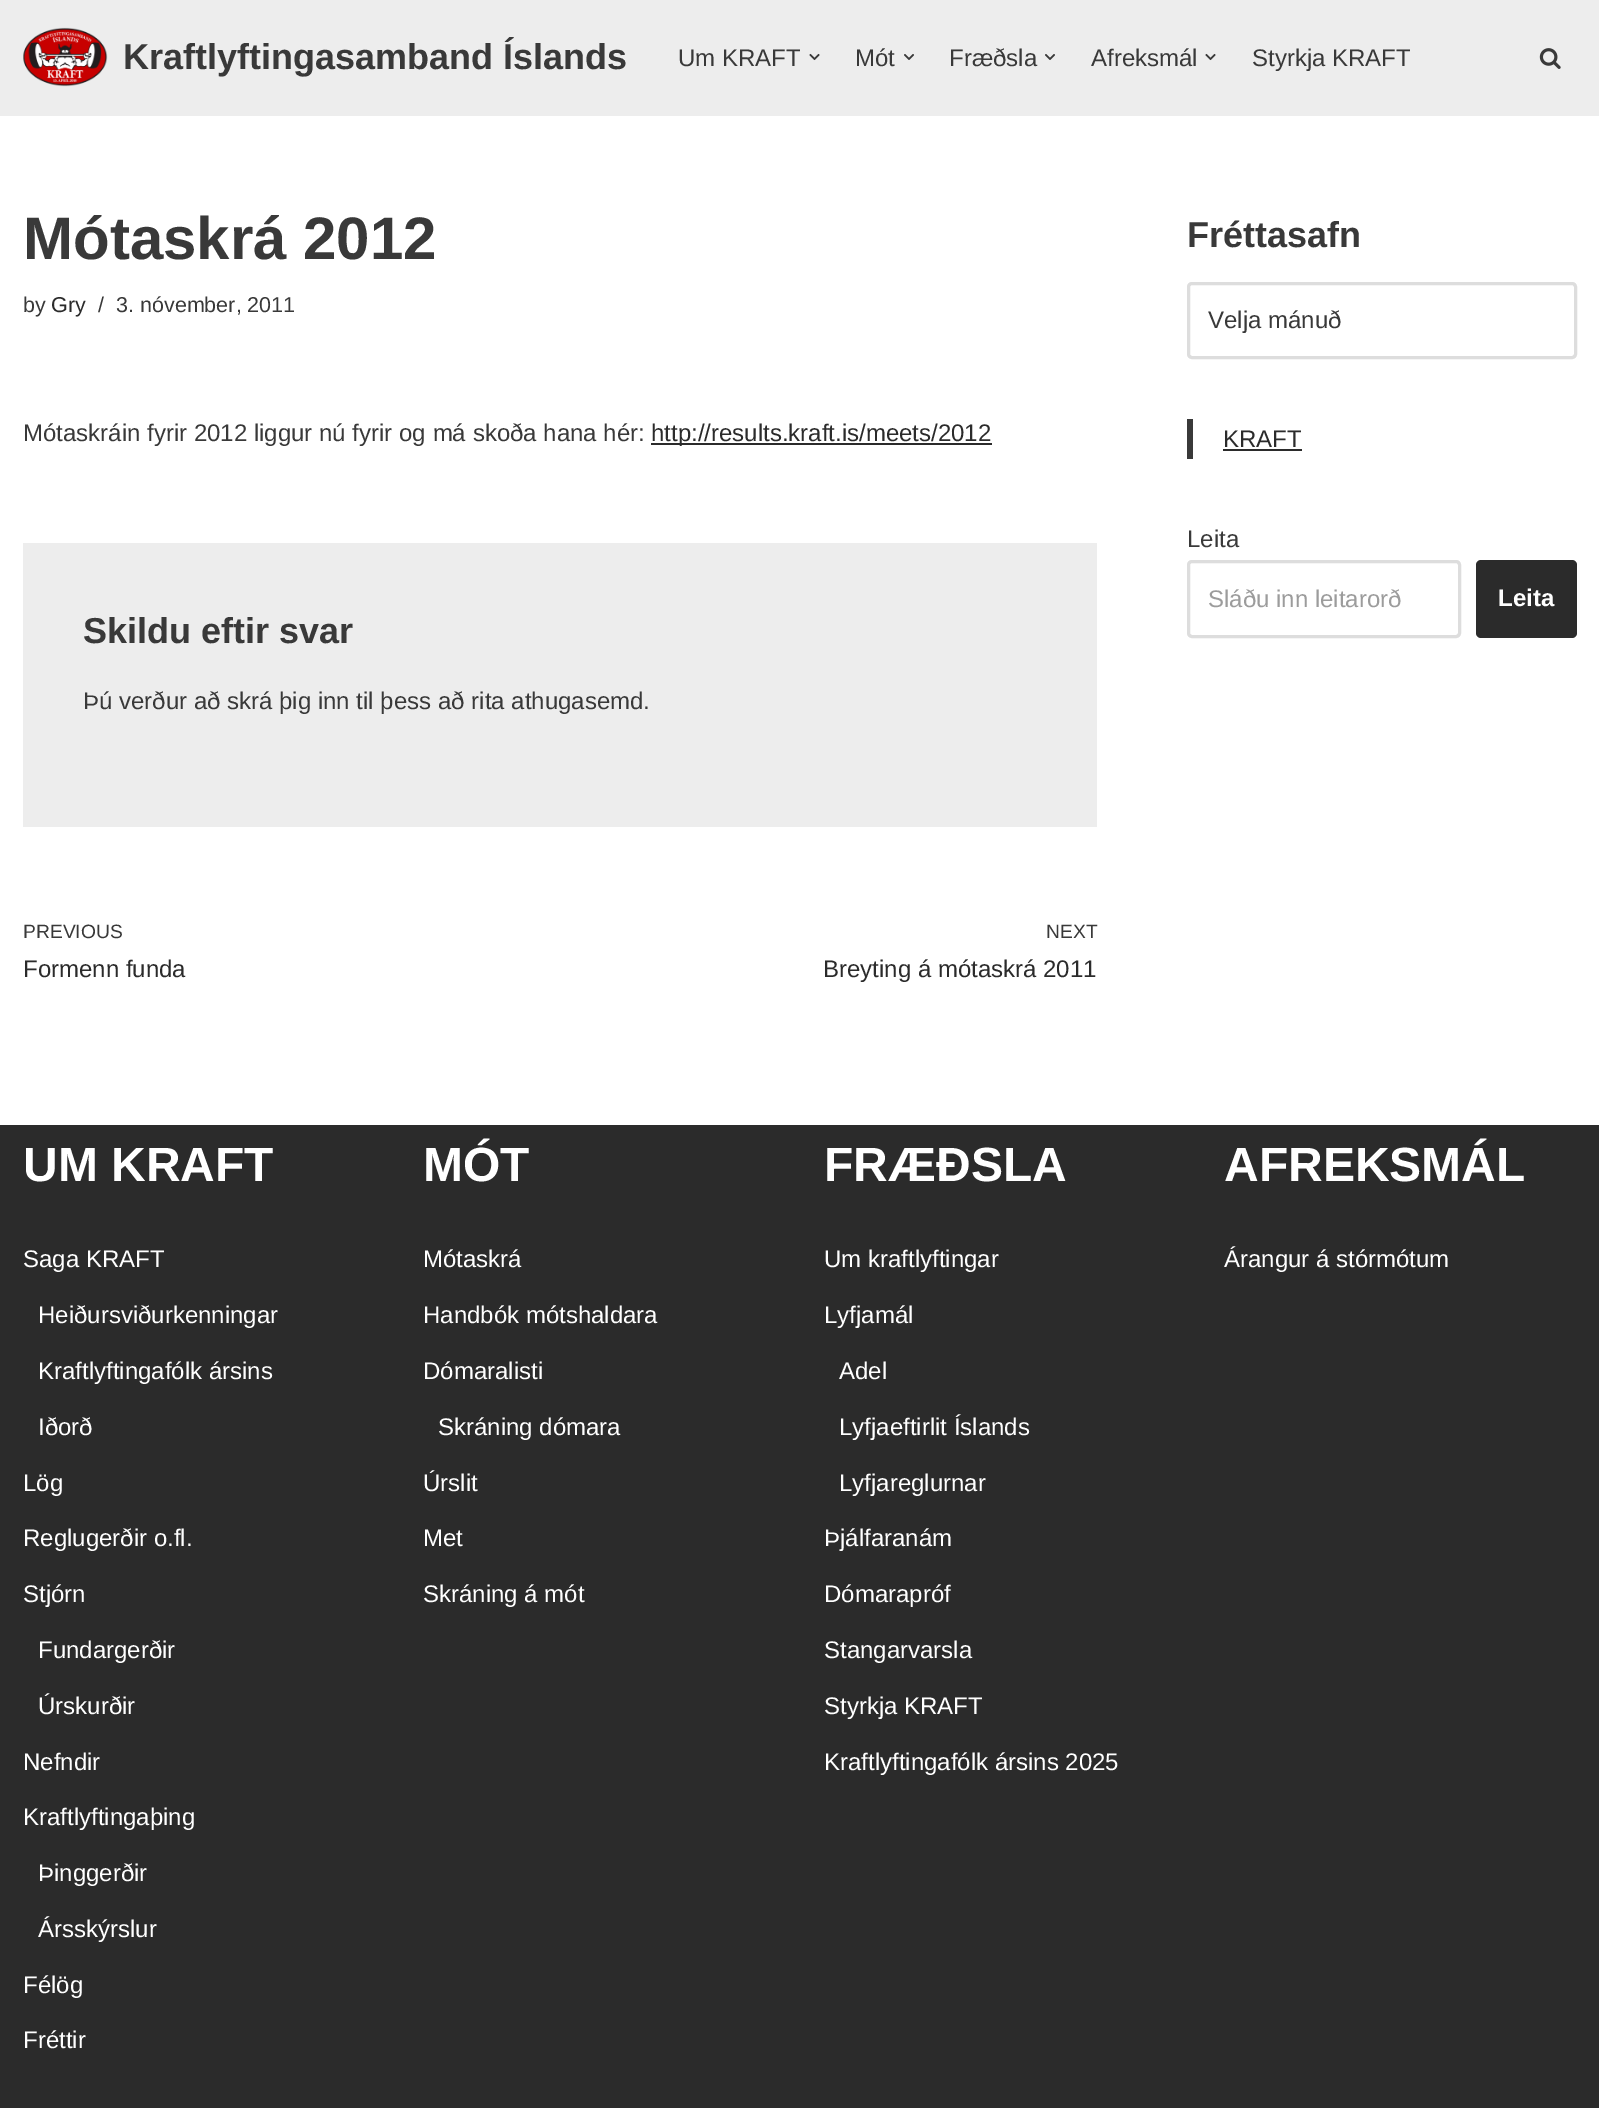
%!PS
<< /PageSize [1599 2108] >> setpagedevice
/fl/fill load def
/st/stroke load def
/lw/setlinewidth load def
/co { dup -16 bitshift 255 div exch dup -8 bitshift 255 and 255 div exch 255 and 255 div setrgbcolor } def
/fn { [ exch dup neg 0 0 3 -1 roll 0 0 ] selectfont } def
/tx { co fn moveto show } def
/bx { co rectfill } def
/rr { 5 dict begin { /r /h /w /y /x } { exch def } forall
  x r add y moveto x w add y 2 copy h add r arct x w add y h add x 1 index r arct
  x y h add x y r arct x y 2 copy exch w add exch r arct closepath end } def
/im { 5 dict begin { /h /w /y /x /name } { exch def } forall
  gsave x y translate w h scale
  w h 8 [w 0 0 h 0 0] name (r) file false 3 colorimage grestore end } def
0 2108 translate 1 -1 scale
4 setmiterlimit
0 0 1599 2108 16#FFFFFF bx
0 0 1599 116 16#EDEDED bx
(media/1.raw) 23 27 85 60 im
(media/2.raw) 809 53 11 8 im
(media/3.raw) 904 54 10 6 im
(media/3.raw) 1045 54 10 6 im
(media/2.raw) 1205 53 11 8 im
(media/4.raw) 1539 48 22 21 im
651 443 341 2 16#2B2B2B bx
23 543 1074 284 16#EDEDED bx
16#DDDDDD co
3 lw
1188.5 283.5 387 74 3.5 rr st
1187 419 6 40 16#393939 bx
1223 449 79 2 16#2B2B2B bx
16#DDDDDD co
1188.5 561.5 271 75 3.5 rr st
16#2B2B2B co
1476 560 101 78 5 rr fl
0 1125 1599 983 16#2B2B2B bx
(Kraftlyftingasamband Íslands) 123 69 /LiberationSans-Bold 36 16#393939 tx
(Um KRAFT) 678 66 /LiberationSans-Regular 24 16#393939 tx
(Mót) 855 66 /LiberationSans-Regular 24 16#393939 tx
(Fræðsla) 949 66 /LiberationSans-Regular 24 16#393939 tx
(Afreksmál) 1091 66 /LiberationSans-Regular 24 16#393939 tx
(Styrkja KRAFT) 1252 66 /LiberationSans-Regular 24 16#393939 tx
(Mótaskrá 2012) 23 259 /LiberationSans-Bold 60 16#393939 tx
(by) 23 312 /LiberationSans-Regular 21.5 16#393939 tx
(Gry) 51 312 /LiberationSans-Regular 21.5 16#2B2B2B tx
(/) 98 312 /LiberationSans-Regular 21.5 16#393939 tx
(3. nóvember, 2011) 116 312 /LiberationSans-Regular 21.5 16#393939 tx
(Mótaskráin fyrir 2012 liggur nú fyrir og má skoða hana hér:) 23 441 /LiberationSans-Regular 24 16#393939 tx
(http://results.kraft.is/meets/2012) 651 441 /LiberationSans-Regular 24 16#2B2B2B tx
(Skildu eftir svar) 83 643 /LiberationSans-Bold 36 16#393939 tx
(Þú verður að skrá þig inn til þess að rita athugasemd.) 83 709 /LiberationSans-Regular 24 16#393939 tx
(PREVIOUS) 23 938 /LiberationSans-Regular 19.25 16#393939 tx
(Formenn funda) 23 977 /LiberationSans-Regular 24 16#2B2B2B tx
(NEXT) 1046 938 /LiberationSans-Regular 19.25 16#393939 tx
(Breyting á mótaskrá 2011) 823 977 /LiberationSans-Regular 24 16#2B2B2B tx
(Fréttasafn) 1187 247 /LiberationSans-Bold 36 16#393939 tx
(Velja mánuð) 1208 328 /LiberationSans-Regular 24 16#393939 tx
(KRAFT) 1223 447 /LiberationSans-Regular 24 16#2B2B2B tx
(Leita) 1187 547 /LiberationSans-Regular 24 16#393939 tx
(Sláðu inn leitarorð) 1208 607 /LiberationSans-Regular 24 16#9C9C9C tx
(Leita) 1498 606 /LiberationSans-Bold 24 16#FFFFFF tx
(UM KRAFT) 23 1181 /LiberationSans-Bold 48 16#FFFFFF tx
(Saga KRAFT) 23 1267 /LiberationSans-Regular 24 16#FFFFFF tx
(Heiðursviðurkenningar) 38 1323 /LiberationSans-Regular 24 16#FFFFFF tx
(Kraftlyftingafólk ársins) 38 1379 /LiberationSans-Regular 24 16#FFFFFF tx
(Iðorð) 38 1435 /LiberationSans-Regular 24 16#FFFFFF tx
(Lög) 23 1491 /LiberationSans-Regular 24 16#FFFFFF tx
(Reglugerðir o.fl.) 23 1546 /LiberationSans-Regular 24 16#FFFFFF tx
(Stjórn) 23 1602 /LiberationSans-Regular 24 16#FFFFFF tx
(Fundargerðir) 38 1658 /LiberationSans-Regular 24 16#FFFFFF tx
(Úrskurðir) 38 1714 /LiberationSans-Regular 24 16#FFFFFF tx
(Nefndir) 23 1770 /LiberationSans-Regular 24 16#FFFFFF tx
(Kraftlyftingaþing) 23 1825 /LiberationSans-Regular 24 16#FFFFFF tx
(Þinggerðir) 38 1881 /LiberationSans-Regular 24 16#FFFFFF tx
(Ársskýrslur) 38 1937 /LiberationSans-Regular 24 16#FFFFFF tx
(Félög) 23 1993 /LiberationSans-Regular 24 16#FFFFFF tx
(Fréttir) 23 2048 /LiberationSans-Regular 24 16#FFFFFF tx
(MÓT) 423 1181 /LiberationSans-Bold 48 16#FFFFFF tx
(Mótaskrá) 423 1267 /LiberationSans-Regular 24 16#FFFFFF tx
(Handbók mótshaldara) 423 1323 /LiberationSans-Regular 24 16#FFFFFF tx
(Dómaralisti) 423 1379 /LiberationSans-Regular 24 16#FFFFFF tx
(Skráning dómara) 438 1435 /LiberationSans-Regular 24 16#FFFFFF tx
(Úrslit) 423 1491 /LiberationSans-Regular 24 16#FFFFFF tx
(Met) 423 1546 /LiberationSans-Regular 24 16#FFFFFF tx
(Skráning á mót) 423 1602 /LiberationSans-Regular 24 16#FFFFFF tx
(FRÆÐSLA) 824 1181 /LiberationSans-Bold 48 16#FFFFFF tx
(Um kraftlyftingar) 824 1267 /LiberationSans-Regular 24 16#FFFFFF tx
(Lyfjamál) 824 1323 /LiberationSans-Regular 24 16#FFFFFF tx
(Adel) 839 1379 /LiberationSans-Regular 24 16#FFFFFF tx
(Lyfjaeftirlit Íslands) 839 1435 /LiberationSans-Regular 24 16#FFFFFF tx
(Lyfjareglurnar) 839 1491 /LiberationSans-Regular 24 16#FFFFFF tx
(Þjálfaranám) 824 1546 /LiberationSans-Regular 24 16#FFFFFF tx
(Dómarapróf) 824 1602 /LiberationSans-Regular 24 16#FFFFFF tx
(Stangarvarsla) 824 1658 /LiberationSans-Regular 24 16#FFFFFF tx
(Styrkja KRAFT) 824 1714 /LiberationSans-Regular 24 16#FFFFFF tx
(Kraftlyftingafólk ársins 2025) 824 1770 /LiberationSans-Regular 24 16#FFFFFF tx
(AFREKSMÁL) 1224 1181 /LiberationSans-Bold 48 16#FFFFFF tx
(Árangur á stórmótum) 1224 1267 /LiberationSans-Regular 24 16#FFFFFF tx
showpage
